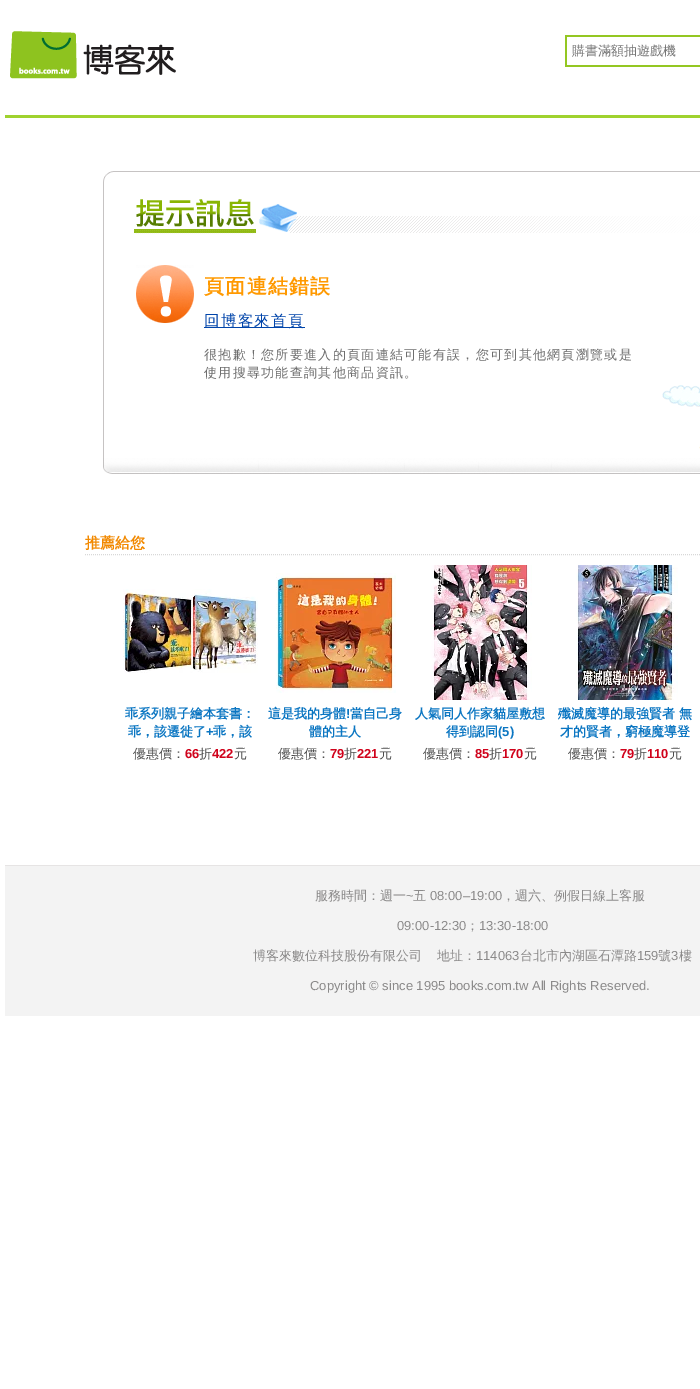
%!PS
<< /PageSize [700 1389] >> setpagedevice
/mt/moveto load def
/li/lineto load def
/st/stroke load def
/co { dup -16 bitshift 255 div exch dup -8 bitshift 255 and 255 div exch 255 and 255 div setrgbcolor } def
/fn { [ exch dup neg 0 0 3 -1 roll 0 0 ] selectfont } def
/tx { co fn moveto show } def
/bx { co rectfill } def
/im { 5 dict begin { /h /w /y /x /name } { exch def } forall
  gsave x y translate w h scale
  w h 8 [w 0 0 h 0 0] name (r) file false 3 colorimage grestore end } def
0 1389 translate 1 -1 scale
4 setmiterlimit
0 0 700 1389 16#FFFFFF bx
(media/1.raw) 10 31 166 48 im
5 115 695 3 16#9FD22E bx
565 35 135 32 16#94C722 bx
567 37 133 28 16#FFFFFF bx
(media/2.raw) 103 171 597 67 im
103 238 1 220 16#C6C3C3 bx
(media/3.raw) 136 265 58 58 im
204 327 101 1 16#0044AA bx
(media/4.raw) 662 385 38 64 im
(media/5.raw) 103 458 597 16 im
16#D8D8D8 co
[1 1] 0 setdash
85 554.5 mt 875 554.5 li st
(media/6.raw) 123 589 135 84 im
(media/7.raw) 276 573 120 120 im
(media/8.raw) 430 565 102 135 im
(media/9.raw) 576 565 102 135 im
5 866 695 150 16#F3F3F3 bx
5 865 695 1 16#E6E4E4 bx
(購書滿額抽遊戲機) 572 55 /WenQuanYiZenHei-Medium 13 16#757575 tx
/WenQuanYiZenHei-Bold 20 fn
16#FF9900 co
204 293 mt 1.3 0 (頁面連結錯誤) ashow
/WenQuanYiZenHei-Medium 15.5 fn
16#0044AA co
204 326 mt 1.3 0 (回博客來首頁) ashow
/WenQuanYiZenHei-Medium 13 fn
16#6E6E6E co
204 359 mt 1.3 0 (很抱歉！您所要進入的頁面連結可能有誤，您可到其他網頁瀏覽或是) ashow
204 377 mt 1.3 0 (使用搜尋功能查詢其他商品資訊。) ashow
(推薦給您) 85 548 /WenQuanYiZenHei-Bold 15 16#F28900 tx
(乖系列親子繪本套書：) 125 718 /WenQuanYiZenHei-Bold 13 16#0B76C2 tx
(乖，該遷徙了) 128 736 /WenQuanYiZenHei-Bold 13 16#0B76C2 tx
(+) 206 736 /LiberationSans-Bold 13 16#0B76C2 tx
(乖，該) 213 736 /WenQuanYiZenHei-Bold 13 16#0B76C2 tx
(優惠價：) 133 758 /WenQuanYiZenHei-Medium 13 16#4C4C4C tx
(66) 185 758 /LiberationSans-Bold 13 16#D0021B tx
(折) 199 758 /WenQuanYiZenHei-Medium 13 16#4C4C4C tx
(422) 212 758 /LiberationSans-Bold 13 16#D0021B tx
(元) 234 758 /WenQuanYiZenHei-Medium 13 16#4C4C4C tx
(這是我的身體) 268 718 /WenQuanYiZenHei-Bold 13 16#0B76C2 tx
(!) 346 718 /LiberationSans-Bold 13 16#0B76C2 tx
(當自己身) 350 718 /WenQuanYiZenHei-Bold 13 16#0B76C2 tx
(體的主人) 309 736 /WenQuanYiZenHei-Bold 13 16#0B76C2 tx
(優惠價：) 278 758 /WenQuanYiZenHei-Medium 13 16#4C4C4C tx
(79) 330 758 /LiberationSans-Bold 13 16#D0021B tx
(折) 344 758 /WenQuanYiZenHei-Medium 13 16#4C4C4C tx
(221) 357 758 /LiberationSans-Bold 13 16#D0021B tx
(元) 379 758 /WenQuanYiZenHei-Medium 13 16#4C4C4C tx
(人氣同人作家貓屋敷想) 415 718 /WenQuanYiZenHei-Bold 13 16#0B76C2 tx
(得到認同) 446 736 /WenQuanYiZenHei-Bold 13 16#0B76C2 tx
(\(5\)) 498 736 /LiberationSans-Bold 13 16#0B76C2 tx
(優惠價：) 423 758 /WenQuanYiZenHei-Medium 13 16#4C4C4C tx
(85) 475 758 /LiberationSans-Bold 13 16#D0021B tx
(折) 489 758 /WenQuanYiZenHei-Medium 13 16#4C4C4C tx
(170) 502 758 /LiberationSans-Bold 13 16#D0021B tx
(元) 524 758 /WenQuanYiZenHei-Medium 13 16#4C4C4C tx
(殲滅魔導的最強賢者 無) 558 718 /WenQuanYiZenHei-Bold 13 16#0B76C2 tx
(才的賢者，窮極魔導登) 560 736 /WenQuanYiZenHei-Bold 13 16#0B76C2 tx
(優惠價：) 568 758 /WenQuanYiZenHei-Medium 13 16#4C4C4C tx
(79) 620 758 /LiberationSans-Bold 13 16#D0021B tx
(折) 634 758 /WenQuanYiZenHei-Medium 13 16#4C4C4C tx
(110) 647 758 /LiberationSans-Bold 13 16#D0021B tx
(元) 669 758 /WenQuanYiZenHei-Medium 13 16#4C4C4C tx
(服務時間：週一) 315 900 /WenQuanYiZenHei-Medium 13 16#8B8A8A tx
(~) 406 900 /LiberationSans-Regular 13 16#8B8A8A tx
(五) 413 900 /WenQuanYiZenHei-Medium 13 16#8B8A8A tx
(08:00–19:00) 430 900 /LiberationSans-Regular 13 16#8B8A8A tx
(，週六、例假日線上客服) 502 900 /WenQuanYiZenHei-Medium 13 16#8B8A8A tx
(09:00-12:30) 397 930 /LiberationSans-Regular 13 16#8B8A8A tx
(；) 466 930 /WenQuanYiZenHei-Medium 13 16#8B8A8A tx
(13:30-18:00) 479 930 /LiberationSans-Regular 13 16#8B8A8A tx
(博客來數位科技股份有限公司) 253 960 /WenQuanYiZenHei-Medium 13 16#8B8A8A tx
(地址：) 437 960 /WenQuanYiZenHei-Medium 13 16#8B8A8A tx
(114063) 476 960 /LiberationSans-Regular 13 16#8B8A8A tx
(台北市內湖區石潭路) 520 960 /WenQuanYiZenHei-Medium 13 16#8B8A8A tx
(159) 637 960 /LiberationSans-Regular 13 16#8B8A8A tx
(號) 658 960 /WenQuanYiZenHei-Medium 13 16#8B8A8A tx
(3) 671 960 /LiberationSans-Regular 13 16#8B8A8A tx
(樓) 679 960 /WenQuanYiZenHei-Medium 13 16#8B8A8A tx
(Copyright © since 1995 books.com.tw All Rights Reserved.) 310 990 /LiberationSans-Regular 13 16#8B8A8A tx
showpage
